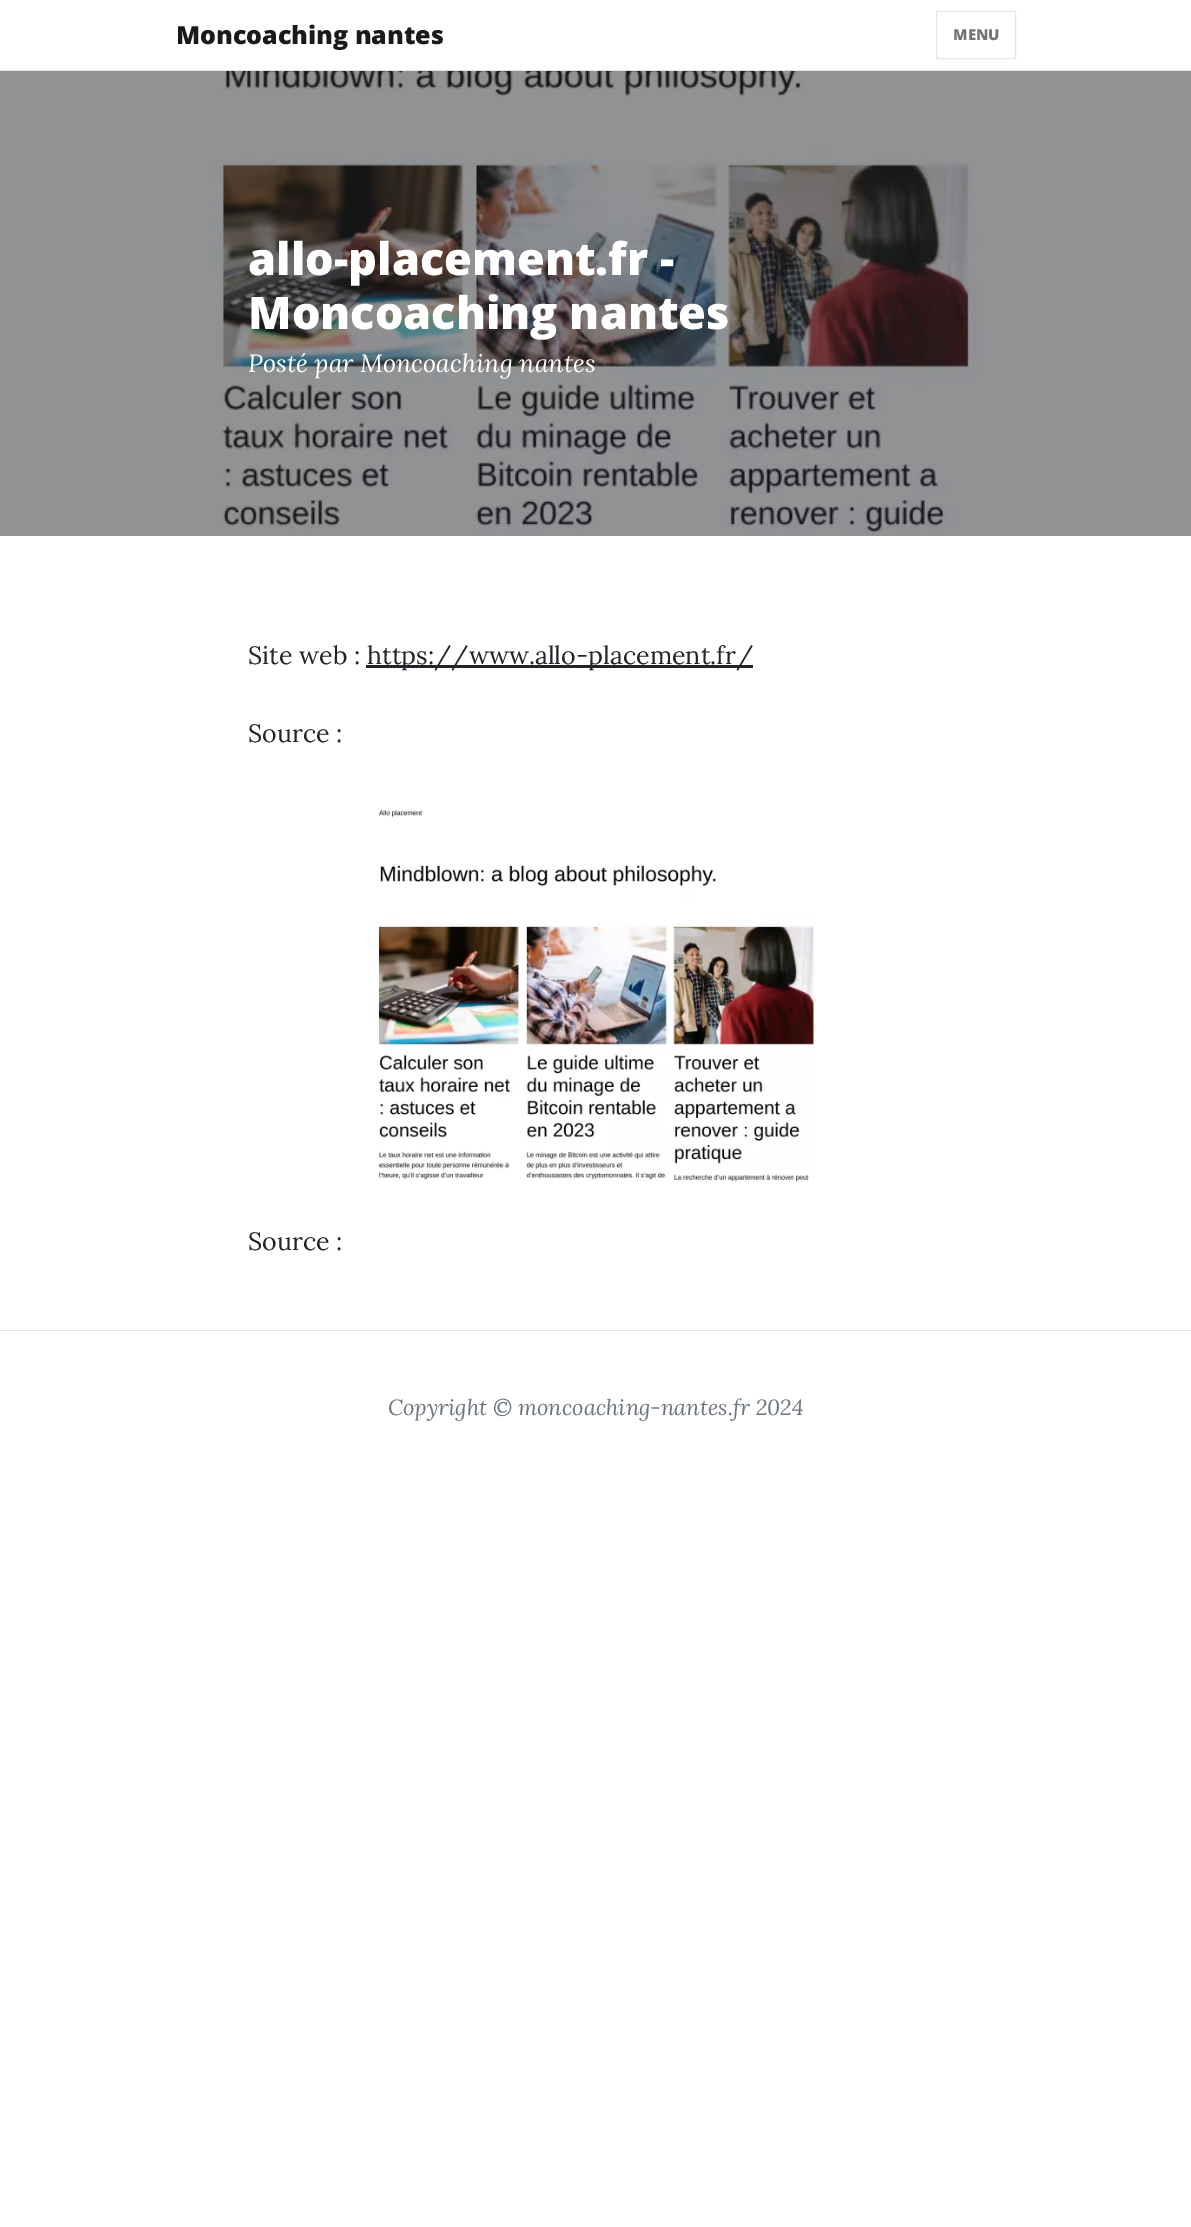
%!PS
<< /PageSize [1191 2227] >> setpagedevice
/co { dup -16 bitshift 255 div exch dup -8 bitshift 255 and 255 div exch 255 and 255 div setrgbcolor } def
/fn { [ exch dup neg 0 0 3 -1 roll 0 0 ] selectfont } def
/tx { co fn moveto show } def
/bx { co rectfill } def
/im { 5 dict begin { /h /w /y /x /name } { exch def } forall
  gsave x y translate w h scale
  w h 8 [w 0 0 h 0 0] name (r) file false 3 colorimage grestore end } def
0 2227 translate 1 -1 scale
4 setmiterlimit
0 0 1191 2227 16#FFFFFF bx
0 70 1191 1 16#DEE2E6 bx
16#E6E6E6 co
936.5 11.5 79 47 rectstroke
(media/1.raw) 0 71 1191 465 im
366 665 387 3 16#212529 bx
(media/2.raw) 374 809 442 374 im
0 1330 1191 1 16#DEE2E6 bx
(Moncoaching nantes) 176 44 /OpenSans-ExtraBold 25 16#1A1A1A tx
(MENU) 953 40 /OpenSans-ExtraBold 15 16#737373 tx
(allo-placement.fr -) 248 275 /OpenSans-ExtraBold 45 16#FFFFFF tx
(Moncoaching nantes) 248 329 /OpenSans-ExtraBold 45 16#FFFFFF tx
(Posté par Moncoaching nantes) 248 372 /Lora-Italic 25 16#FFFFFF tx
(Site web :) 248 664 /Lora-Regular 25 16#212529 tx
(https://www.allo-placement.fr/) 367 664 /Lora-Regular 25 16#212529 tx
(Source :) 248 742 /Lora-Regular 25 16#212529 tx
(Source :) 248 1250 /Lora-Regular 25 16#212529 tx
(Copyright © moncoaching-nantes.fr 2024) 388 1415 /Lora-Italic 21.9 16#6C757D tx
showpage
